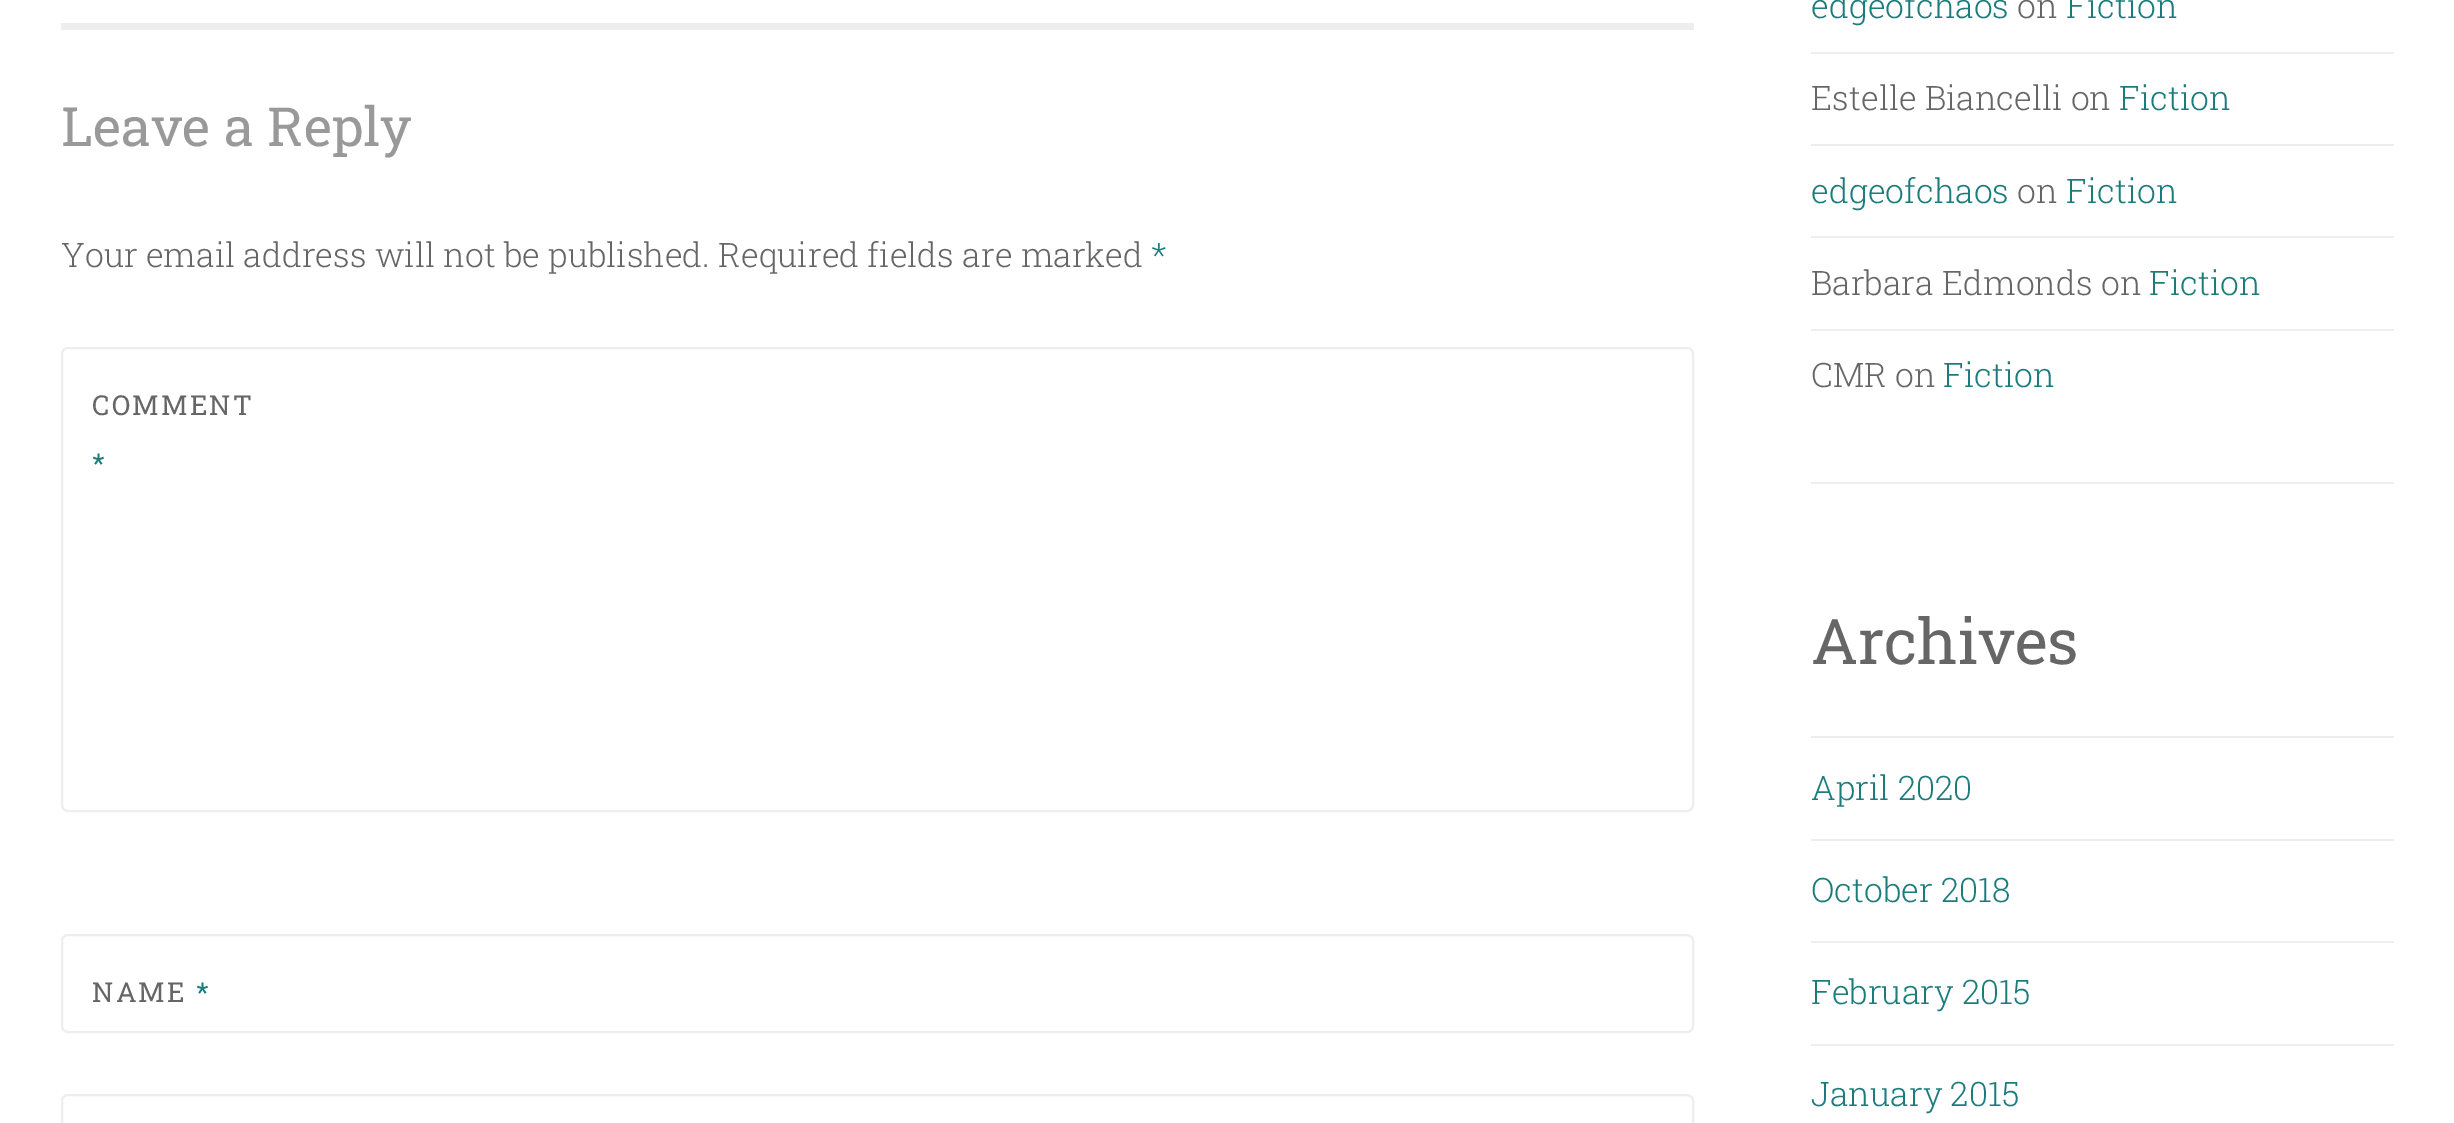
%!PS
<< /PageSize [2454 1123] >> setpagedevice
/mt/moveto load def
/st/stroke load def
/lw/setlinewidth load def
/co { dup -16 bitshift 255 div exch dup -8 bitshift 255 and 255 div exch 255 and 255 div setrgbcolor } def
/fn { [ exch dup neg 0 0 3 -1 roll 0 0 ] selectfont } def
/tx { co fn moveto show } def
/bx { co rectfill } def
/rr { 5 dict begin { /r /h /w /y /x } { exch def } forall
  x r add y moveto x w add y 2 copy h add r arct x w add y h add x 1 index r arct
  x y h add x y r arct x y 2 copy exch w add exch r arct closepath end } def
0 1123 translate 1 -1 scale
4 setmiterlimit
0 0 2454 1123 16#FFFFFF bx
61 23 1633 7 16#EEEEEE bx
2 lw
62 348 1631 463 6 rr st
62 935 1631 97 6 rr st
62 1095 1631 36 6 rr st
1811 482 583 2 16#EEEEEE bx
1811 52 583 2 16#EEEEEE bx
1811 144 583 2 16#EEEEEE bx
1811 236 583 2 16#EEEEEE bx
1811 329 583 2 16#EEEEEE bx
1811 736 583 2 16#EEEEEE bx
1811 839 583 2 16#EEEEEE bx
1811 941 583 2 16#EEEEEE bx
1811 1044 583 2 16#EEEEEE bx
(Leave a Reply) 61 146 /RobotoSlab-Regular 54 16#999999 tx
(Your email address will not be published. Required fields are marked) 61 267 /RobotoSlab-Light 33.75 16#666666 tx
(*) 1151 267 /RobotoSlab-Light 33.75 16#1C7C7C tx
/RobotoSlab-Regular 27.5 fn
16#666666 co
92 415 mt 2.25 0 (COMMENT) ashow
16#1C7C7C co
92 473 mt 2.25 0 (*) ashow
16#666666 co
92 1002 mt 2.25 0 (NAME) ashow
16#1C7C7C co
196 1002 mt 2.25 0 (*) ashow
(edgeofchaos) 1811 18 /RobotoSlab-Light 33.75 16#1C7C7C tx
(on) 2017 18 /RobotoSlab-Light 33.75 16#666666 tx
(Fiction) 2066 18 /RobotoSlab-Light 33.75 16#1C7C7C tx
(Estelle Biancelli on) 1811 110 /RobotoSlab-Light 33.75 16#666666 tx
(Fiction) 2119 110 /RobotoSlab-Light 33.75 16#1C7C7C tx
(edgeofchaos) 1811 203 /RobotoSlab-Light 33.75 16#1C7C7C tx
(on) 2017 203 /RobotoSlab-Light 33.75 16#666666 tx
(Fiction) 2066 203 /RobotoSlab-Light 33.75 16#1C7C7C tx
(Barbara Edmonds on) 1811 295 /RobotoSlab-Light 33.75 16#666666 tx
(Fiction) 2149 295 /RobotoSlab-Light 33.75 16#1C7C7C tx
(CMR on) 1811 387 /RobotoSlab-Light 33.75 16#666666 tx
(Fiction) 1943 387 /RobotoSlab-Light 33.75 16#1C7C7C tx
(Archives) 1811 664 /RobotoSlab-Regular 63 16#666666 tx
(April 2020) 1811 800 /RobotoSlab-Light 33.75 16#1C7C7C tx
(October 2018) 1811 902 /RobotoSlab-Light 33.75 16#1C7C7C tx
(February 2015) 1811 1004 /RobotoSlab-Light 33.75 16#1C7C7C tx
(January 2015) 1811 1106 /RobotoSlab-Light 33.75 16#1C7C7C tx
showpage
